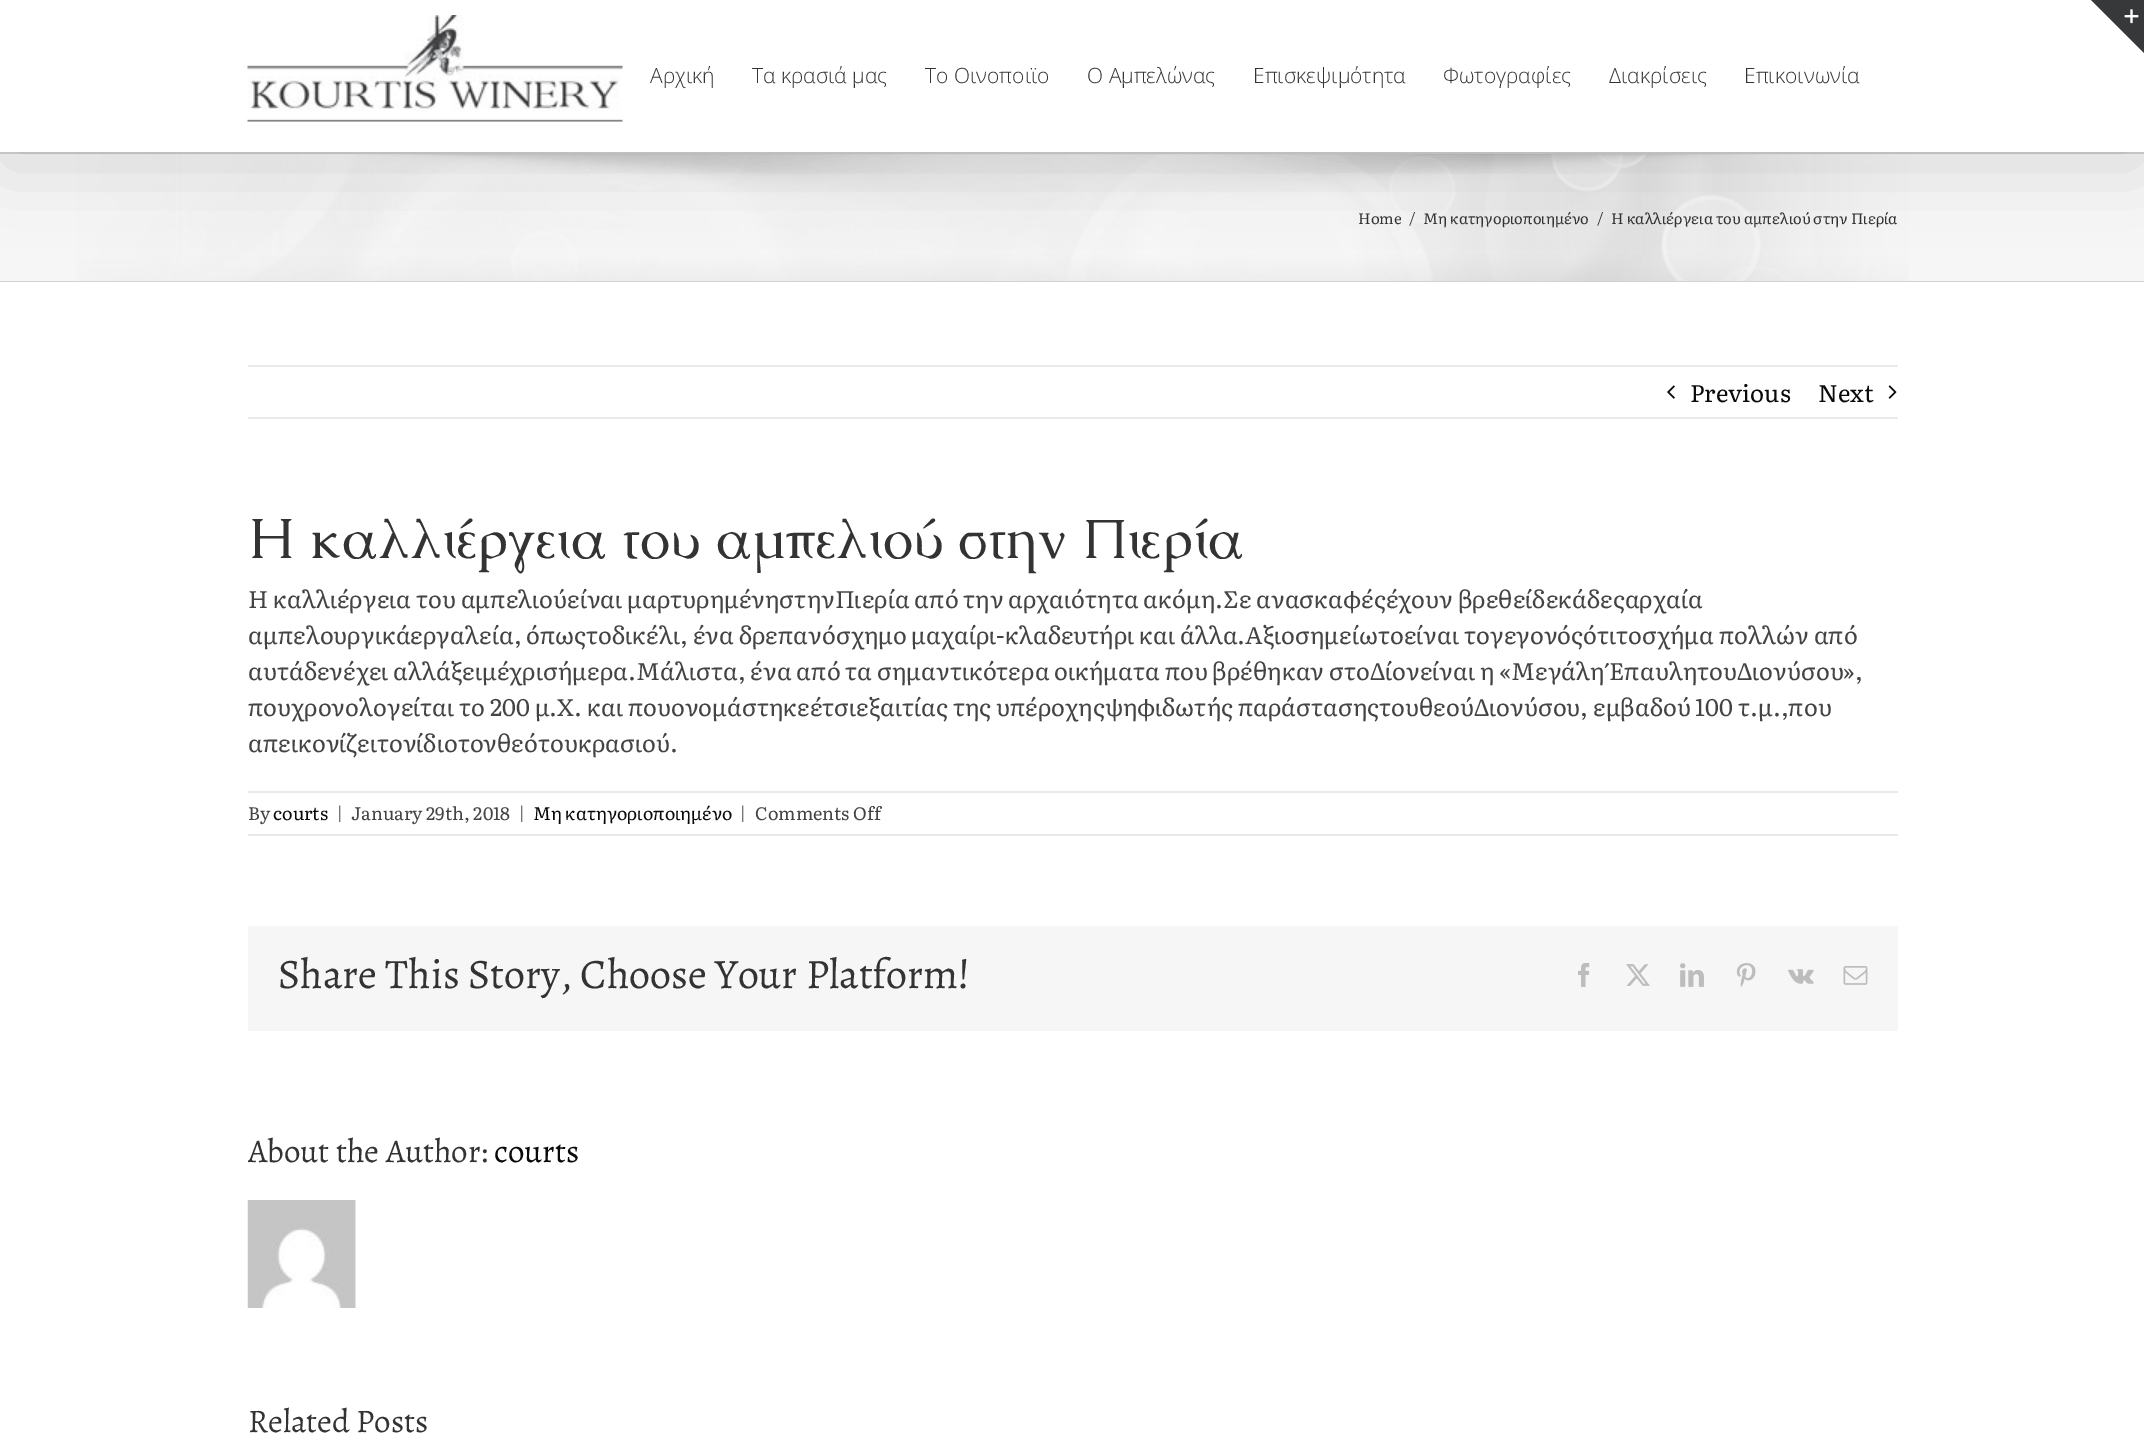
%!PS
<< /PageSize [2144 1436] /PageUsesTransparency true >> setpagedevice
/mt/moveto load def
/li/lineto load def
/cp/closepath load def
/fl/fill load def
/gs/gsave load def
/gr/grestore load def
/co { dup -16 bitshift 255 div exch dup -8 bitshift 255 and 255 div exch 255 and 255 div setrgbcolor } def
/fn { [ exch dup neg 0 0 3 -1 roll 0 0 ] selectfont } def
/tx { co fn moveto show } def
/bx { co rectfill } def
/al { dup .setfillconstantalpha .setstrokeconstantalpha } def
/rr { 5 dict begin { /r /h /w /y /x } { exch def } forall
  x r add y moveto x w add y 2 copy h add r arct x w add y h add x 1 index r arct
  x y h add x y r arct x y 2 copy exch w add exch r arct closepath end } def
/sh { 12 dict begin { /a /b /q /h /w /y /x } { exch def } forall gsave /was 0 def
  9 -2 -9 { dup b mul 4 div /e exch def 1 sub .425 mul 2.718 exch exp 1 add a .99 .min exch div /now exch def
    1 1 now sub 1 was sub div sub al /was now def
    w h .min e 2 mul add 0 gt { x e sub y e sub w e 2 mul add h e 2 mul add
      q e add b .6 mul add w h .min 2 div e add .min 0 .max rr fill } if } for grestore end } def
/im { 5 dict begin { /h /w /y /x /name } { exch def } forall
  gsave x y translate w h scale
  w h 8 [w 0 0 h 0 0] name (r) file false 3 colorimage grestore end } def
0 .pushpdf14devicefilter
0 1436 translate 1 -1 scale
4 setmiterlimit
0 0 2144 1436 16#F6F6F6 bx
(media/3.raw) 76 154 1833 127 im
0 152 2144 2 16#D2D3D4 bx
16#000000 co
3 18 2139 146 0 37.5 .14 sh
0 0 2144 152 16#FFFFFF bx
16#363839 co
2091 0 mt 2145 0 li 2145 54 li cp fl
(media/1.raw) 2124 9 15 15 im
(media/2.raw) 247 15 376 107 im
0 281 2144 1 16#D2D3D4 bx
0 282 2144 1154 16#FFFFFF bx
248 365 1650 2 16#EBEAEA bx
248 417 1650 2 16#EBEAEA bx
(media/4.raw) 1667 385 8 14 im
(media/5.raw) 1888 385 9 14 im
248 791 1650 2 16#EBEAEA bx
248 834 1650 2 16#EBEAEA bx
248 926 1650 105 16#F6F6F6 bx
(media/6.raw) 1578 963 12 24 im
(media/7.raw) 1626 964 24 22 im
(media/8.raw) 1680 963 24 24 im
(media/9.raw) 1736 963 20 24 im
(media/10.raw) 1788 969 26 15 im
(media/11.raw) 1843 966 25 19 im
(media/12.raw) 247 1200 109 108 im
(Αρχική) 650 83 /OpenSans-Light 21 16#333333 tx
(Τα κρασιά μας) 752 83 /OpenSans-Light 21 16#333333 tx
(Το Οινοποιϊο) 925 83 /OpenSans-Light 21 16#333333 tx
(Ο Αμπελώνας) 1087 83 /OpenSans-Light 21 16#333333 tx
(Επισκεψιμότητα) 1253 83 /OpenSans-Light 21 16#333333 tx
(Φωτογραφίες) 1443 83 /OpenSans-Light 21 16#333333 tx
(Διακρίσεις) 1609 83 /OpenSans-Light 21 16#333333 tx
(Επικοινωνία) 1744 83 /OpenSans-Light 21 16#333333 tx
(Home) 1358 224 /Literata-Regular 15 16#333333 tx
(/) 1409 224 /Literata-Regular 15 16#333333 tx
(Μη κατηγοριοποιημένο) 1423 224 /Literata-Regular 15 16#333333 tx
(/) 1597 224 /Literata-Regular 15 16#333333 tx
(Η καλλιέργεια του αμπελιού στην Πιερία) 1611 224 /Literata-Regular 15 16#333333 tx
(Previous) 1690 402 /Literata-Regular 24 16#0A0A0A tx
(Next) 1818 402 /Literata-Regular 24 16#0A0A0A tx
(Η καλλιέργεια του αμπελιού στην Πιερία) 248 558 /Caudex-Regular 57 16#333333 tx
(Η καλλιέργεια του αμπελιούείναι μαρτυρημένηστηνΠιερία από την αρχαιότητα ακόμη.Σε ανασκαφέςέχουν βρεθείδεκάδεςαρχαία) 248 608 /Literata-Regular 24 16#444444 tx
(αμπελουργικάεργαλεία, όπωςτοδικέλι, ένα δρεπανόσχημο μαχαίρι-κλαδευτήρι και άλλα.Αξιοσημείωτοείναι τογεγονόςότιτοσχήμα πολλών από) 248 644 /Literata-Regular 24 16#444444 tx
(αυτάδενέχει αλλάξειμέχρισήμερα.Μάλιστα, ένα από τα σημαντικότερα οικήματα που βρέθηκαν στοΔίονείναι η «Μεγάλη ΈπαυλητουΔιονύσου»,) 248 680 /Literata-Regular 24 16#444444 tx
(πουχρονολογείται το 200 μ.Χ. και πουονομάστηκεέτσιεξαιτίας της υπέροχηςψηφιδωτής παράστασηςτουθεούΔιονύσου, εμβαδού 100 τ.μ.,που) 248 716 /Literata-Regular 24 16#444444 tx
(απεικονίζειτονίδιοτονθεότουκρασιού.) 248 752 /Literata-Regular 24 16#444444 tx
(By) 248 820 /Literata-Regular 18 16#444444 tx
(courts) 273 820 /Literata-Regular 18 16#0A0A0A tx
(|) 336 820 /Literata-Regular 18 16#444444 tx
(January 29th, 2018) 351 820 /Literata-Regular 18 16#444444 tx
(|) 518 820 /Literata-Regular 18 16#444444 tx
(Μη κατηγοριοποιημένο) 533 820 /Literata-Regular 18 16#0A0A0A tx
(|) 739 820 /Literata-Regular 18 16#444444 tx
(Comments Off) 755 820 /Literata-Regular 18 16#444444 tx
(Share This Story, Choose Your Platform!) 278 988 /Alegreya-Regular 42 16#333333 tx
gs
248 1113 1650 203 rectclip
(About the Author:) 248 1162 /Alegreya-Regular 33 16#333333 tx
gr
(courts) 494 1162 /Alegreya-Regular 33 16#0A0A0A tx
(Related Posts) 248 1432 /Alegreya-Regular 33 16#333333 tx
.poppdf14devicefilter showpage
